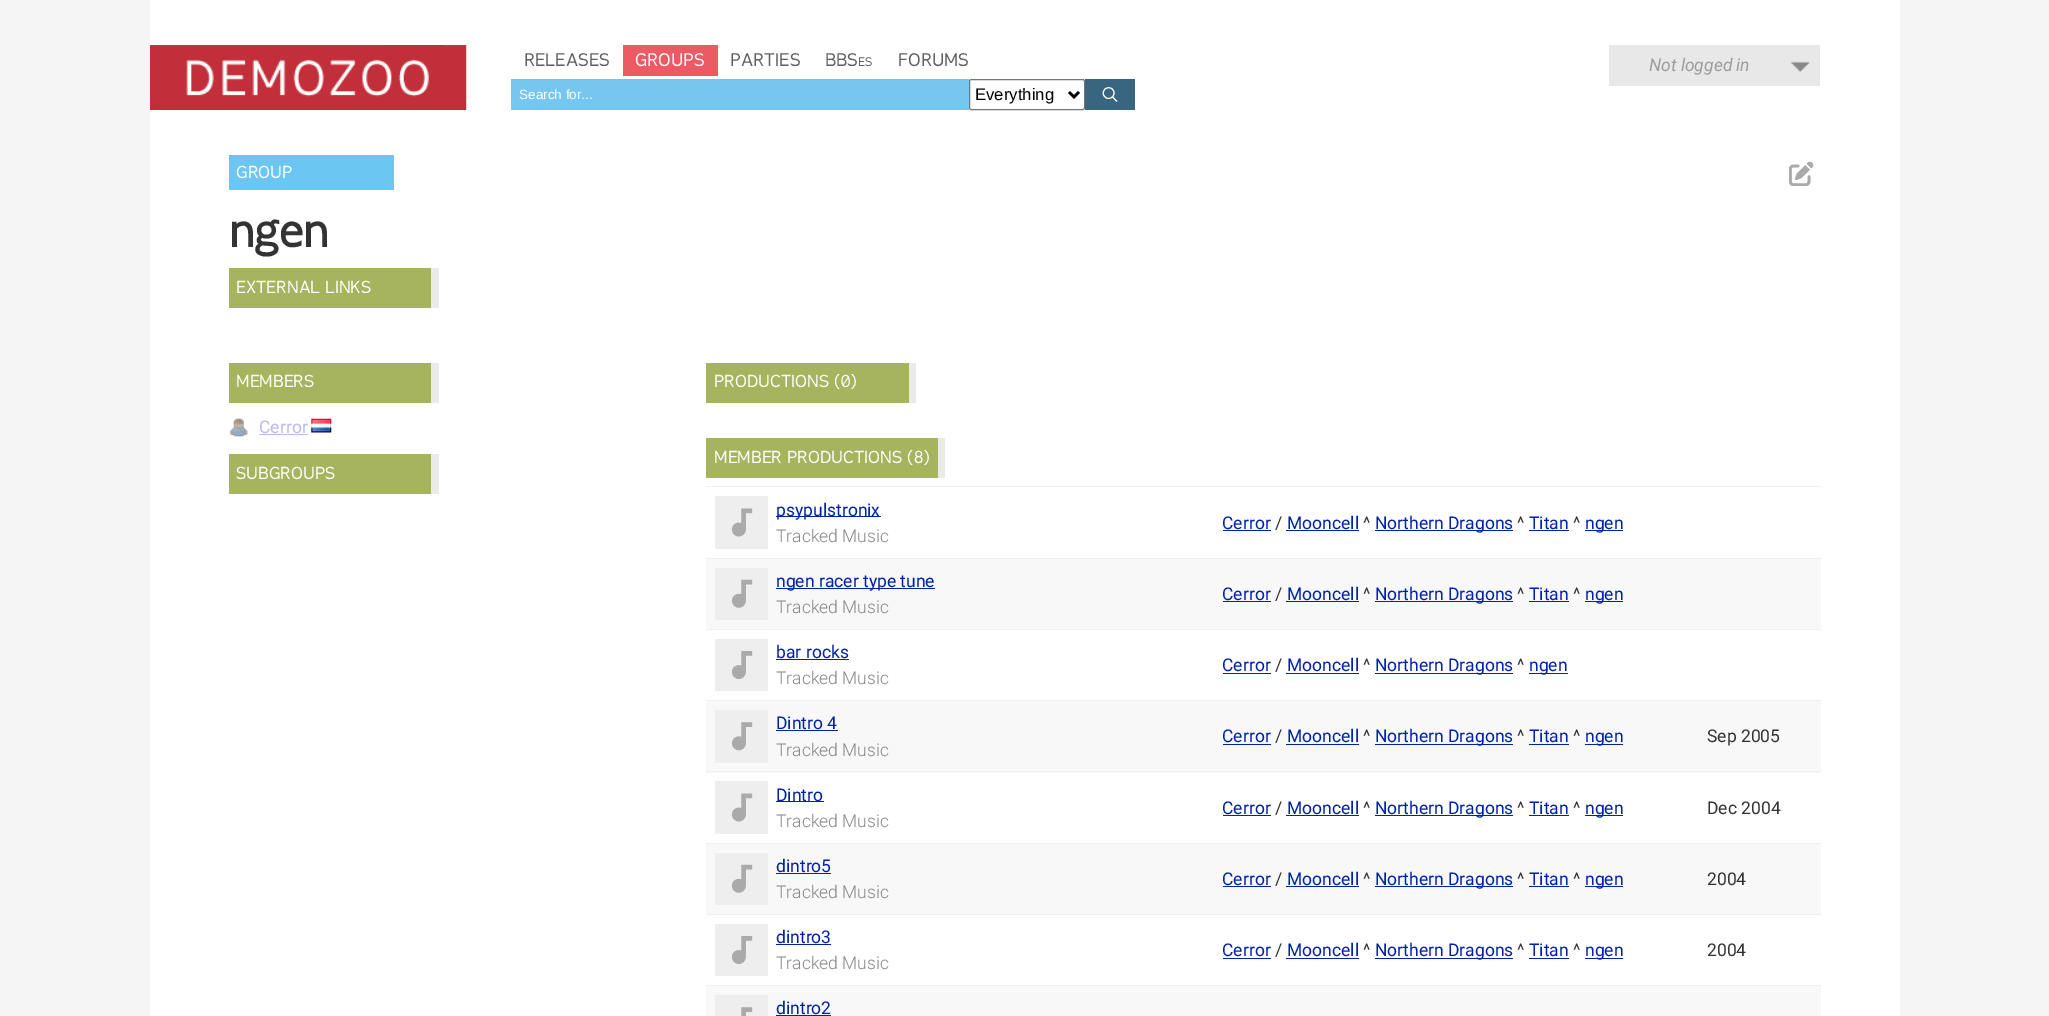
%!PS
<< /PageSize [2049 1016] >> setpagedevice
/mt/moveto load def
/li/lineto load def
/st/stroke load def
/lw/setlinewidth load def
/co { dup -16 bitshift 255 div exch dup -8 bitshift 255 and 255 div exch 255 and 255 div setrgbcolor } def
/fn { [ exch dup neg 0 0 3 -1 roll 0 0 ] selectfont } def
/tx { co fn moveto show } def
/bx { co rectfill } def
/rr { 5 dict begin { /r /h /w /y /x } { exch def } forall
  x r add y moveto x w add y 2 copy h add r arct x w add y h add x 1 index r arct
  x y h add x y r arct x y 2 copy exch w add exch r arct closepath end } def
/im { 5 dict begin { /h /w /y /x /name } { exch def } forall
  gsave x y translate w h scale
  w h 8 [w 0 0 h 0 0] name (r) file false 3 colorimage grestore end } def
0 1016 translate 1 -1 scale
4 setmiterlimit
0 0 2049 1016 16#F5F5F5 bx
150 0 1750 1016 16#FFFFFF bx
(media/1.raw) 150 45 317 65 im
623 45 95 31 16#EC5A64 bx
511 79 458 31 16#77C6EF bx
16#767676 co
969.5 79.5 115 30 2 rr st
16#000000 co
2.5 lw
1069 92 mt 1074 97 li 1079 92 li st
1085 79 50 31 16#386580 bx
(media/2.raw) 1102 87 16 15 im
1609 45 211 41 16#E8E8E8 bx
(media/3.raw) 1791 61 19 11 im
229 155 165 35 16#6BC7F1 bx
(media/4.raw) 1789 161 25 25 im
229 268 202 40 16#A5B45D bx
431 268 8 40 16#EAEAEA bx
229 363 202 40 16#A5B45D bx
431 363 8 40 16#EAEAEA bx
(media/5.raw) 229 418 19 19 im
259 434 49 1 16#BBBBEE bx
(media/6.raw) 311 418 21 15 im
229 454 202 40 16#A5B45D bx
431 454 8 40 16#EAEAEA bx
706 363 203 40 16#A5B45D bx
909 363 7 40 16#EAEAEA bx
706 438 232 40 16#A5B45D bx
938 438 7 40 16#EAEAEA bx
706 486 1115 1 16#F0F0F0 bx
715 496 53 53 16#EEEEEE bx
(media/7.raw) 731 508 22 29 im
776 516 105 1 16#0022AA bx
1223 530 48 1 16#0022AA bx
1286 530 73 1 16#0022AA bx
1375 530 138 1 16#0022AA bx
1529 530 40 1 16#0022AA bx
1585 530 38 1 16#0022AA bx
706 559 1115 70 16#F8F8F8 bx
706 558 1115 1 16#F0F0F0 bx
715 568 53 52 16#EEEEEE bx
(media/8.raw) 731 579 22 29 im
776 588 159 1 16#0022AA bx
1223 601 48 1 16#0022AA bx
1286 601 73 1 16#0022AA bx
1375 601 138 1 16#0022AA bx
1529 601 40 1 16#0022AA bx
1585 601 38 1 16#0022AA bx
706 629 1115 1 16#F0F0F0 bx
715 639 53 52 16#EEEEEE bx
(media/9.raw) 731 651 22 28 im
776 659 73 1 16#0022AA bx
1223 673 48 1 16#0022AA bx
1286 673 73 1 16#0022AA bx
1375 673 138 1 16#0022AA bx
1529 673 39 1 16#0022AA bx
706 701 1115 72 16#F8F8F8 bx
706 700 1115 1 16#F0F0F0 bx
715 710 53 53 16#EEEEEE bx
(media/10.raw) 731 722 22 29 im
776 730 62 1 16#0022AA bx
1223 744 48 1 16#0022AA bx
1286 744 73 1 16#0022AA bx
1375 744 138 1 16#0022AA bx
1529 744 40 1 16#0022AA bx
1585 744 38 1 16#0022AA bx
706 771 1115 1 16#F0F0F0 bx
715 781 53 53 16#EEEEEE bx
(media/7.raw) 731 793 22 29 im
776 801 48 1 16#0022AA bx
1223 815 48 1 16#0022AA bx
1286 815 73 1 16#0022AA bx
1375 815 138 1 16#0022AA bx
1529 815 40 1 16#0022AA bx
1585 815 38 1 16#0022AA bx
706 844 1115 70 16#F8F8F8 bx
706 843 1115 1 16#F0F0F0 bx
715 853 53 52 16#EEEEEE bx
(media/8.raw) 731 864 22 29 im
776 873 55 1 16#0022AA bx
1223 886 48 1 16#0022AA bx
1286 886 73 1 16#0022AA bx
1375 886 138 1 16#0022AA bx
1529 886 40 1 16#0022AA bx
1585 886 38 1 16#0022AA bx
706 914 1115 1 16#F0F0F0 bx
715 924 53 52 16#EEEEEE bx
(media/9.raw) 731 936 22 28 im
776 944 55 1 16#0022AA bx
1223 958 48 1 16#0022AA bx
1286 958 73 1 16#0022AA bx
1375 958 138 1 16#0022AA bx
1529 958 40 1 16#0022AA bx
1585 958 38 1 16#0022AA bx
706 986 1115 30 16#F8F8F8 bx
706 985 1115 1 16#F0F0F0 bx
715 995 53 21 16#EEEEEE bx
(media/11.raw) 741 1007 12 9 im
776 1015 55 1 16#0022AA bx
(RELEASES) 524 66 /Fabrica-Regular 17.5 16#5E5F5F tx
(GROUPS) 635 66 /Fabrica-Regular 17.5 16#FFFFFF tx
(PARTIES) 730 66 /Fabrica-Regular 17.5 16#5E5F5F tx
(BBS) 825 66 /Fabrica-Regular 17.5 16#5E5F5F tx
(ES) 858 66 /Fabrica-Regular 12 16#5E5F5F tx
(FORUMS) 898 66 /Fabrica-Regular 17.5 16#5E5F5F tx
(Search for...) 519 99 /LiberationSans-Regular 13.5 16#FFFFFF tx
(Everything) 975 100 /LiberationSans-Regular 16.7 16#000000 tx
(Not logged in) 1649 71 /Roboto-Italic 17.5 16#9D9D9D tx
(GROUP) 236 178 /Fabrica-Regular 16.7 16#FFFFFF tx
(ngen) 229 247 /Fabrica-Bold 43 16#333333 tx
(EXTERNAL LINKS) 236 293 /Fabrica-Regular 16.7 16#FFFFFF tx
(MEMBERS) 236 387 /Fabrica-Regular 16.7 16#FFFFFF tx
(Cerror) 259 433 /Roboto-Regular 17.5 16#BBBBEE tx
(SUBGROUPS) 236 479 /Fabrica-Regular 16.7 16#FFFFFF tx
(PRODUCTIONS \(0\)) 714 387 /Fabrica-Regular 16.7 16#FFFFFF tx
(MEMBER PRODUCTIONS \(8\)) 714 463 /Fabrica-Regular 16.7 16#FFFFFF tx
(psypulstronix) 776 516 /Roboto-Regular 17.5 16#0022AA tx
(Tracked Music) 776 542 /Roboto-Light 17.5 16#888888 tx
(Cerror) 1222 529 /Roboto-Regular 17.5 16#0022AA tx
(/) 1275 529 /Roboto-Regular 17.5 16#333333 tx
(Mooncell) 1287 529 /Roboto-Regular 17.5 16#0022AA tx
(^) 1363 529 /Roboto-Regular 17.5 16#333333 tx
(Northern Dragons) 1375 529 /Roboto-Regular 17.5 16#0022AA tx
(^) 1517 529 /Roboto-Regular 17.5 16#333333 tx
(Titan) 1529 529 /Roboto-Regular 17.5 16#0022AA tx
(^) 1573 529 /Roboto-Regular 17.5 16#333333 tx
(ngen) 1585 529 /Roboto-Regular 17.5 16#0022AA tx
(ngen racer type tune) 776 587 /Roboto-Regular 17.5 16#0022AA tx
(Tracked Music) 776 613 /Roboto-Light 17.5 16#888888 tx
(Cerror) 1222 600 /Roboto-Regular 17.5 16#0022AA tx
(/) 1275 600 /Roboto-Regular 17.5 16#333333 tx
(Mooncell) 1287 600 /Roboto-Regular 17.5 16#0022AA tx
(^) 1363 600 /Roboto-Regular 17.5 16#333333 tx
(Northern Dragons) 1375 600 /Roboto-Regular 17.5 16#0022AA tx
(^) 1517 600 /Roboto-Regular 17.5 16#333333 tx
(Titan) 1529 600 /Roboto-Regular 17.5 16#0022AA tx
(^) 1573 600 /Roboto-Regular 17.5 16#333333 tx
(ngen) 1585 600 /Roboto-Regular 17.5 16#0022AA tx
(bar rocks) 776 658 /Roboto-Regular 17.5 16#0022AA tx
(Tracked Music) 776 684 /Roboto-Light 17.5 16#888888 tx
(Cerror) 1222 671 /Roboto-Regular 17.5 16#0022AA tx
(/) 1275 671 /Roboto-Regular 17.5 16#333333 tx
(Mooncell) 1287 671 /Roboto-Regular 17.5 16#0022AA tx
(^) 1363 671 /Roboto-Regular 17.5 16#333333 tx
(Northern Dragons) 1375 671 /Roboto-Regular 17.5 16#0022AA tx
(^) 1517 671 /Roboto-Regular 17.5 16#333333 tx
(ngen) 1529 671 /Roboto-Regular 17.5 16#0022AA tx
(Dintro 4) 776 729 /Roboto-Regular 17.5 16#0022AA tx
(Tracked Music) 776 756 /Roboto-Light 17.5 16#888888 tx
(Cerror) 1222 742 /Roboto-Regular 17.5 16#0022AA tx
(/) 1275 742 /Roboto-Regular 17.5 16#333333 tx
(Mooncell) 1287 742 /Roboto-Regular 17.5 16#0022AA tx
(^) 1363 742 /Roboto-Regular 17.5 16#333333 tx
(Northern Dragons) 1375 742 /Roboto-Regular 17.5 16#0022AA tx
(^) 1517 742 /Roboto-Regular 17.5 16#333333 tx
(Titan) 1529 742 /Roboto-Regular 17.5 16#0022AA tx
(^) 1573 742 /Roboto-Regular 17.5 16#333333 tx
(ngen) 1585 742 /Roboto-Regular 17.5 16#0022AA tx
(Sep 2005) 1707 742 /Roboto-Regular 17.5 16#333333 tx
(Dintro) 776 801 /Roboto-Regular 17.5 16#0022AA tx
(Tracked Music) 776 827 /Roboto-Light 17.5 16#888888 tx
(Cerror) 1222 814 /Roboto-Regular 17.5 16#0022AA tx
(/) 1275 814 /Roboto-Regular 17.5 16#333333 tx
(Mooncell) 1287 814 /Roboto-Regular 17.5 16#0022AA tx
(^) 1363 814 /Roboto-Regular 17.5 16#333333 tx
(Northern Dragons) 1375 814 /Roboto-Regular 17.5 16#0022AA tx
(^) 1517 814 /Roboto-Regular 17.5 16#333333 tx
(Titan) 1529 814 /Roboto-Regular 17.5 16#0022AA tx
(^) 1573 814 /Roboto-Regular 17.5 16#333333 tx
(ngen) 1585 814 /Roboto-Regular 17.5 16#0022AA tx
(Dec 2004) 1707 814 /Roboto-Regular 17.5 16#333333 tx
(dintro5) 776 872 /Roboto-Regular 17.5 16#0022AA tx
(Tracked Music) 776 898 /Roboto-Light 17.5 16#888888 tx
(Cerror) 1222 885 /Roboto-Regular 17.5 16#0022AA tx
(/) 1275 885 /Roboto-Regular 17.5 16#333333 tx
(Mooncell) 1287 885 /Roboto-Regular 17.5 16#0022AA tx
(^) 1363 885 /Roboto-Regular 17.5 16#333333 tx
(Northern Dragons) 1375 885 /Roboto-Regular 17.5 16#0022AA tx
(^) 1517 885 /Roboto-Regular 17.5 16#333333 tx
(Titan) 1529 885 /Roboto-Regular 17.5 16#0022AA tx
(^) 1573 885 /Roboto-Regular 17.5 16#333333 tx
(ngen) 1585 885 /Roboto-Regular 17.5 16#0022AA tx
(2004) 1707 885 /Roboto-Regular 17.5 16#333333 tx
(dintro3) 776 943 /Roboto-Regular 17.5 16#0022AA tx
(Tracked Music) 776 969 /Roboto-Light 17.5 16#888888 tx
(Cerror) 1222 956 /Roboto-Regular 17.5 16#0022AA tx
(/) 1275 956 /Roboto-Regular 17.5 16#333333 tx
(Mooncell) 1287 956 /Roboto-Regular 17.5 16#0022AA tx
(^) 1363 956 /Roboto-Regular 17.5 16#333333 tx
(Northern Dragons) 1375 956 /Roboto-Regular 17.5 16#0022AA tx
(^) 1517 956 /Roboto-Regular 17.5 16#333333 tx
(Titan) 1529 956 /Roboto-Regular 17.5 16#0022AA tx
(^) 1573 956 /Roboto-Regular 17.5 16#333333 tx
(ngen) 1585 956 /Roboto-Regular 17.5 16#0022AA tx
(2004) 1707 956 /Roboto-Regular 17.5 16#333333 tx
(dintro2) 776 1014 /Roboto-Regular 17.5 16#0022AA tx
showpage
